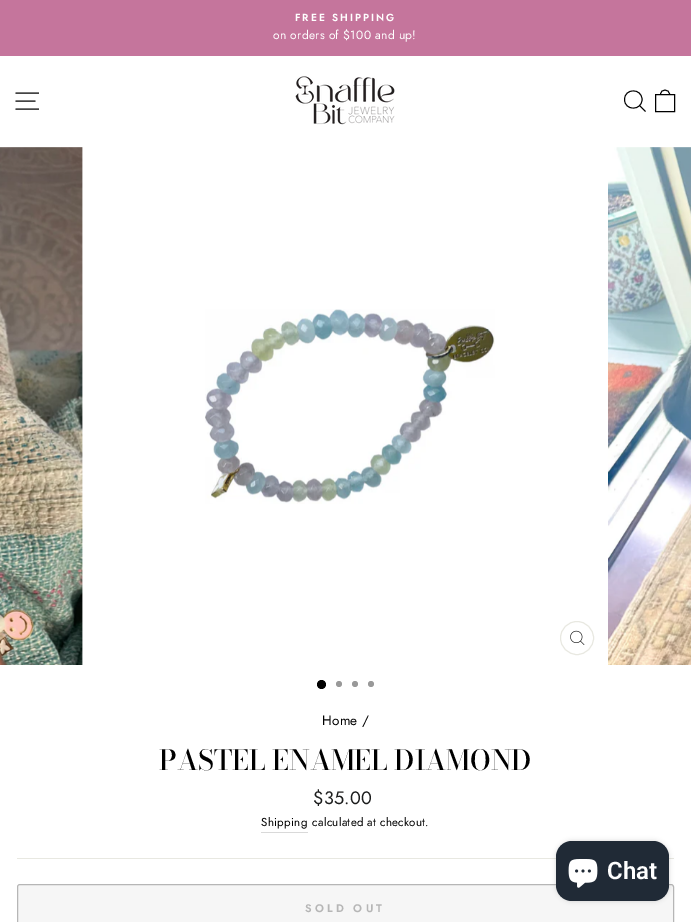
%!PS
<< /PageSize [691 922] /PageUsesTransparency true >> setpagedevice
/mt/moveto load def
/li/lineto load def
/ct/curveto load def
/cp/closepath load def
/fl/fill load def
/st/stroke load def
/gs/gsave load def
/gr/grestore load def
/lw/setlinewidth load def
/co { dup -16 bitshift 255 div exch dup -8 bitshift 255 and 255 div exch 255 and 255 div setrgbcolor } def
/fn { [ exch dup neg 0 0 3 -1 roll 0 0 ] selectfont } def
/tx { co fn moveto show } def
/bx { co rectfill } def
/al { dup .setfillconstantalpha .setstrokeconstantalpha } def
/ci { newpath 0 360 arc closepath } def
/rr { 5 dict begin { /r /h /w /y /x } { exch def } forall
  x r add y moveto x w add y 2 copy h add r arct x w add y h add x 1 index r arct
  x y h add x y r arct x y 2 copy exch w add exch r arct closepath end } def
/sh { 12 dict begin { /a /b /q /h /w /y /x } { exch def } forall gsave /was 0 def
  9 -2 -9 { dup b mul 4 div /e exch def 1 sub .425 mul 2.718 exch exp 1 add a .99 .min exch div /now exch def
    1 1 now sub 1 was sub div sub al /was now def
    w h .min e 2 mul add 0 gt { x e sub y e sub w e 2 mul add h e 2 mul add
      q e add b .6 mul add w h .min 2 div e add .min 0 .max rr fill } if } for grestore end } def
/im { 5 dict begin { /h /w /y /x /name } { exch def } forall
  gsave x y translate w h scale
  w h 8 [w 0 0 h 0 0] name (r) file false 3 colorimage grestore end } def
0 .pushpdf14devicefilter
0 922 translate 1 -1 scale
4 setmiterlimit
0 0 691 922 16#FFFFFF bx
0 0 691 56 16#C5759C bx
16#000000 co
.9 lw
15.5 93 mt 39 93 li 15.5 101 mt 35.5 101 li 15.5 109 mt 39 109 li st
(media/1.raw) 295 76 100 49 im
642 99.5 mt 642 111 624.5 111 624.5 99.5 ct 624.5 88 642 88 642 99.5 ct cp 645.5 111.5 mt 639.5 105.5 li 655.5 94.5 mt 674.5 94.5 li 674.5 111.5 li 655.5 111.5 li cp 660.5 94.5 mt 660.5 88.5 669.5 88.5 669.5 94.5 ct st
(media/2.raw) 0 147 83 518 im
(media/3.raw) 205 309 290 195 im
16#E8E8E1 co
1 lw
577 638 16.5 ci st
(media/4.raw) 570 630 15 15 im
(media/5.raw) 608 147 83 518 im
16#000000 co
321.5 684.5 4.5 ci fl
16#999999 co
339 684 3 ci fl
355 684 3 ci fl
371 684 3 ci fl
261 832 47 1 16#D9D9D9 bx
17 858 657 1 16#E8E8E1 bx
16#F6F6F6 co
17.5 884.5 656 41 2.5 rr gs fl gr
16#B6B6B6 co
st
16#000000 co
556 841 113 60 16 2.5 .15 sh
16#202A36 co
556 841 113 60 16 rr fl
(media/6.raw) 568 859 30 29 im
/Jost-SemiBold 10.25 fn
16#FFFFFF co
295 21 mt 2 0 (FREE SHIPPING) ashow
/Jost-Regular 12 fn
273 39 mt .3 0 (on orders of $100 and up!) ashow
/Jost-Regular 13.5 fn
16#000000 co
322 725 mt .3 0 (Home /) ashow
(PASTEL ENAMEL DIAMOND) 159 770 /BodoniModa-Medium 27.75 16#000000 tx
/Jost-Regular 18 fn
16#1C1D1D co
313 804 mt .3 0 ($35.00) ashow
/Jost-Regular 11.5 fn
16#000000 co
261 826 mt .3 0 (Shipping) ashow
312 826 mt .3 0 (calculated at checkout.) ashow
/Jost-SemiBold 11 fn
16#B6B6B6 co
305 912 mt 3.25 0 (SOLD OUT) ashow
(Chat) 607 879 /Roboto-SemiBold 24 16#FFFFFF tx
.poppdf14devicefilter showpage
